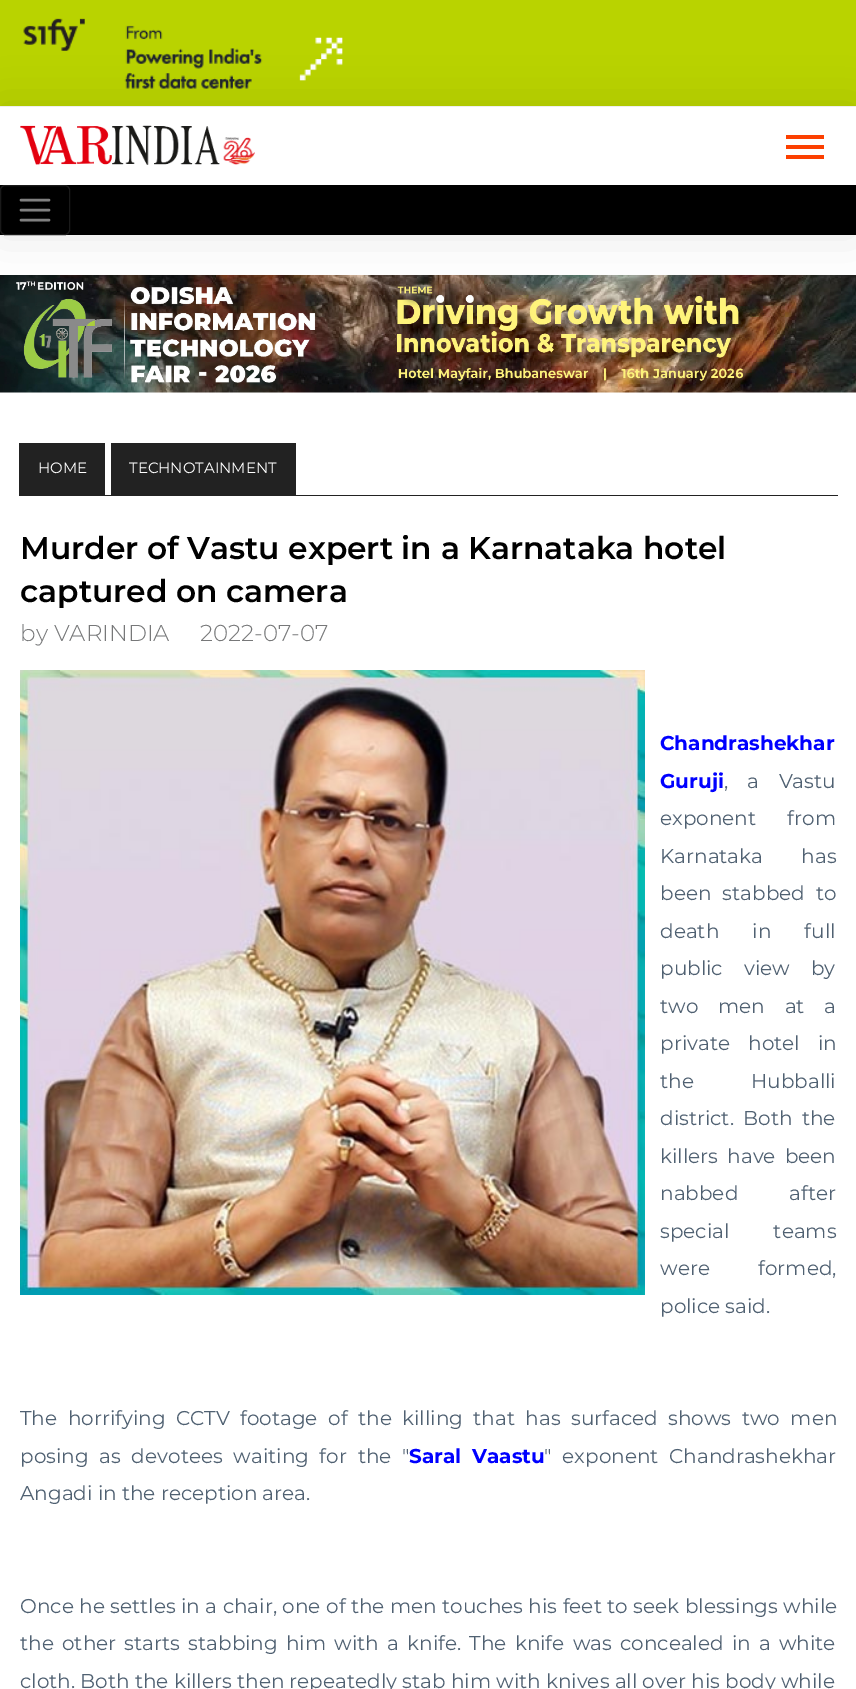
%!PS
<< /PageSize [856 1689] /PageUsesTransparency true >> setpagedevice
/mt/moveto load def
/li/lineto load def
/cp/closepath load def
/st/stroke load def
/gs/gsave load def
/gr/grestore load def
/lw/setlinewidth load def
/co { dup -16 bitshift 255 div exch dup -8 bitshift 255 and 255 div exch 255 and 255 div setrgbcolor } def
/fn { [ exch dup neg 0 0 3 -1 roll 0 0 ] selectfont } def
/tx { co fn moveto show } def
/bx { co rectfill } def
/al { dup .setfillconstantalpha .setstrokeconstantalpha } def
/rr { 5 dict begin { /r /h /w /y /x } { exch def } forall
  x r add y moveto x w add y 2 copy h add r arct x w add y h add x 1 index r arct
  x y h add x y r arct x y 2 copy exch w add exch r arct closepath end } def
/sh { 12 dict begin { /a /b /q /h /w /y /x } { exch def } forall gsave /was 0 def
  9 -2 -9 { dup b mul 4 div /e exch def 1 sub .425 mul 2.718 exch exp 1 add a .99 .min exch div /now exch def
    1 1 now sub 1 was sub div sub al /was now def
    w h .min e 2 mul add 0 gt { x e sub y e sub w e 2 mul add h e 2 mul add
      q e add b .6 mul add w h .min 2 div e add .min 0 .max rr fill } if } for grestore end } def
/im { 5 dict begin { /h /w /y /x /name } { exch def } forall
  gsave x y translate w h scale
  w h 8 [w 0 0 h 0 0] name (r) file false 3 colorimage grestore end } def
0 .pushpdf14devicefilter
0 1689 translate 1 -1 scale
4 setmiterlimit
0 0 856 1689 16#FFFFFF bx
(media/1.raw) 0 0 856 106 im
gs
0 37 mt 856 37 li 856 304 li 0 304 li cp 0 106 mt 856 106 li 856 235 li 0 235 li cp eoclip newpath
16#000000 co
0 106 856 129 0 22.5 .1 sh
gr
0 106 856 1 16#EEEEEE bx
(media/2.raw) 20 125 200 40 im
(media/3.raw) 223 137 32 28 im
786 135 38 4 16#FC3F00 bx
786 145 38 4 16#FC3F00 bx
786 155 38 4 16#FC3F00 bx
0 185 856 50 16#000000 bx
16#1A1A1A co
.5 185.5 69 49 4.5 rr st
16#808080 co
2.5 lw
1 setlinecap
21 200 mt 49 200 li 21 210 mt 49 210 li 21 220 mt 49 220 li st
(media/4.raw) 0 275 856 118 im
19 495 819 1 16#222222 bx
19 443 86 52 16#222222 bx
111 443 185 52 16#222222 bx
(media/5.raw) 20 670 625 625 im
(HOME) 38 473 /Montserrat-Regular 15 16#FFFFFF tx
(TECHNOTAINMENT) 129 473 /Montserrat-Regular 15 16#FFFFFF tx
(Murder of Vastu expert in a Karnataka hotel) 20 559 /Montserrat-SemiBold 31.25 16#000000 tx
(captured on camera) 20 602 /Montserrat-SemiBold 31.25 16#000000 tx
(by VARINDIA) 20 641 /Montserrat-Light 23 16#777879 tx
(2022-07-07) 200 641 /Montserrat-Light 23 16#777879 tx
(Chandrashekhar) 660 750 /Montserrat-Bold 20 16#0000FF tx
(Guruji) 660 788 /Montserrat-Bold 20 16#0000FF tx
/Montserrat-Regular 20 fn
16#506172 co
724 788 mt 14 0 32 (, a Vastu) widthshow
660 825 mt 26 0 32 (exponent from) widthshow
660 863 mt 33 0 32 (Karnataka has) widthshow
660 900 mt 6 0 32 (been stabbed to) widthshow
660 938 mt 28 0 32 (death in full) widthshow
660 975 mt 16 0 32 (public view by) widthshow
660 1013 mt 14.5 0 32 (two men at a) widthshow
660 1050 mt 13 0 32 (private hotel in) widthshow
660 1088 mt 52 0 32 (the Hubballi) widthshow
660 1125 mt 4 0 32 (district. Both the) widthshow
660 1163 mt 4 0 32 (killers have been) widthshow
660 1200 mt 46 0 32 (nabbed after) widthshow
660 1238 mt 39 0 32 (special teams) widthshow
660 1275 mt 43 0 32 (were formed,) widthshow
(police said.) 660 1313 /Montserrat-Regular 20 16#506172 tx
20 1425 mt 5.25 0 32 (The horrifying CCTV footage of the killing that has surfaced shows two men) widthshow
20 1463 mt 5.5 0 32 (posing as devotees waiting for the ") widthshow
/Montserrat-Bold 20 fn
16#0000FF co
409 1463 mt 5.5 0 32 (Saral Vaastu) widthshow
/Montserrat-Regular 20 fn
16#506172 co
544 1463 mt 5.5 0 32 (" exponent Chandrashekhar) widthshow
(Angadi in the reception area.) 20 1500 /Montserrat-Regular 20 16#506172 tx
20 1613 mt .25 0 32 (Once he settles in a chair, one of the men touches his feet to seek blessings while) widthshow
20 1650 mt 3 0 32 (the other starts stabbing him with a knife. The knife was concealed in a white) widthshow
(cloth. Both the killers then repeatedly stab him with knives all over his body while) 20 1688 /Montserrat-Regular 20 16#506172 tx
.poppdf14devicefilter showpage
